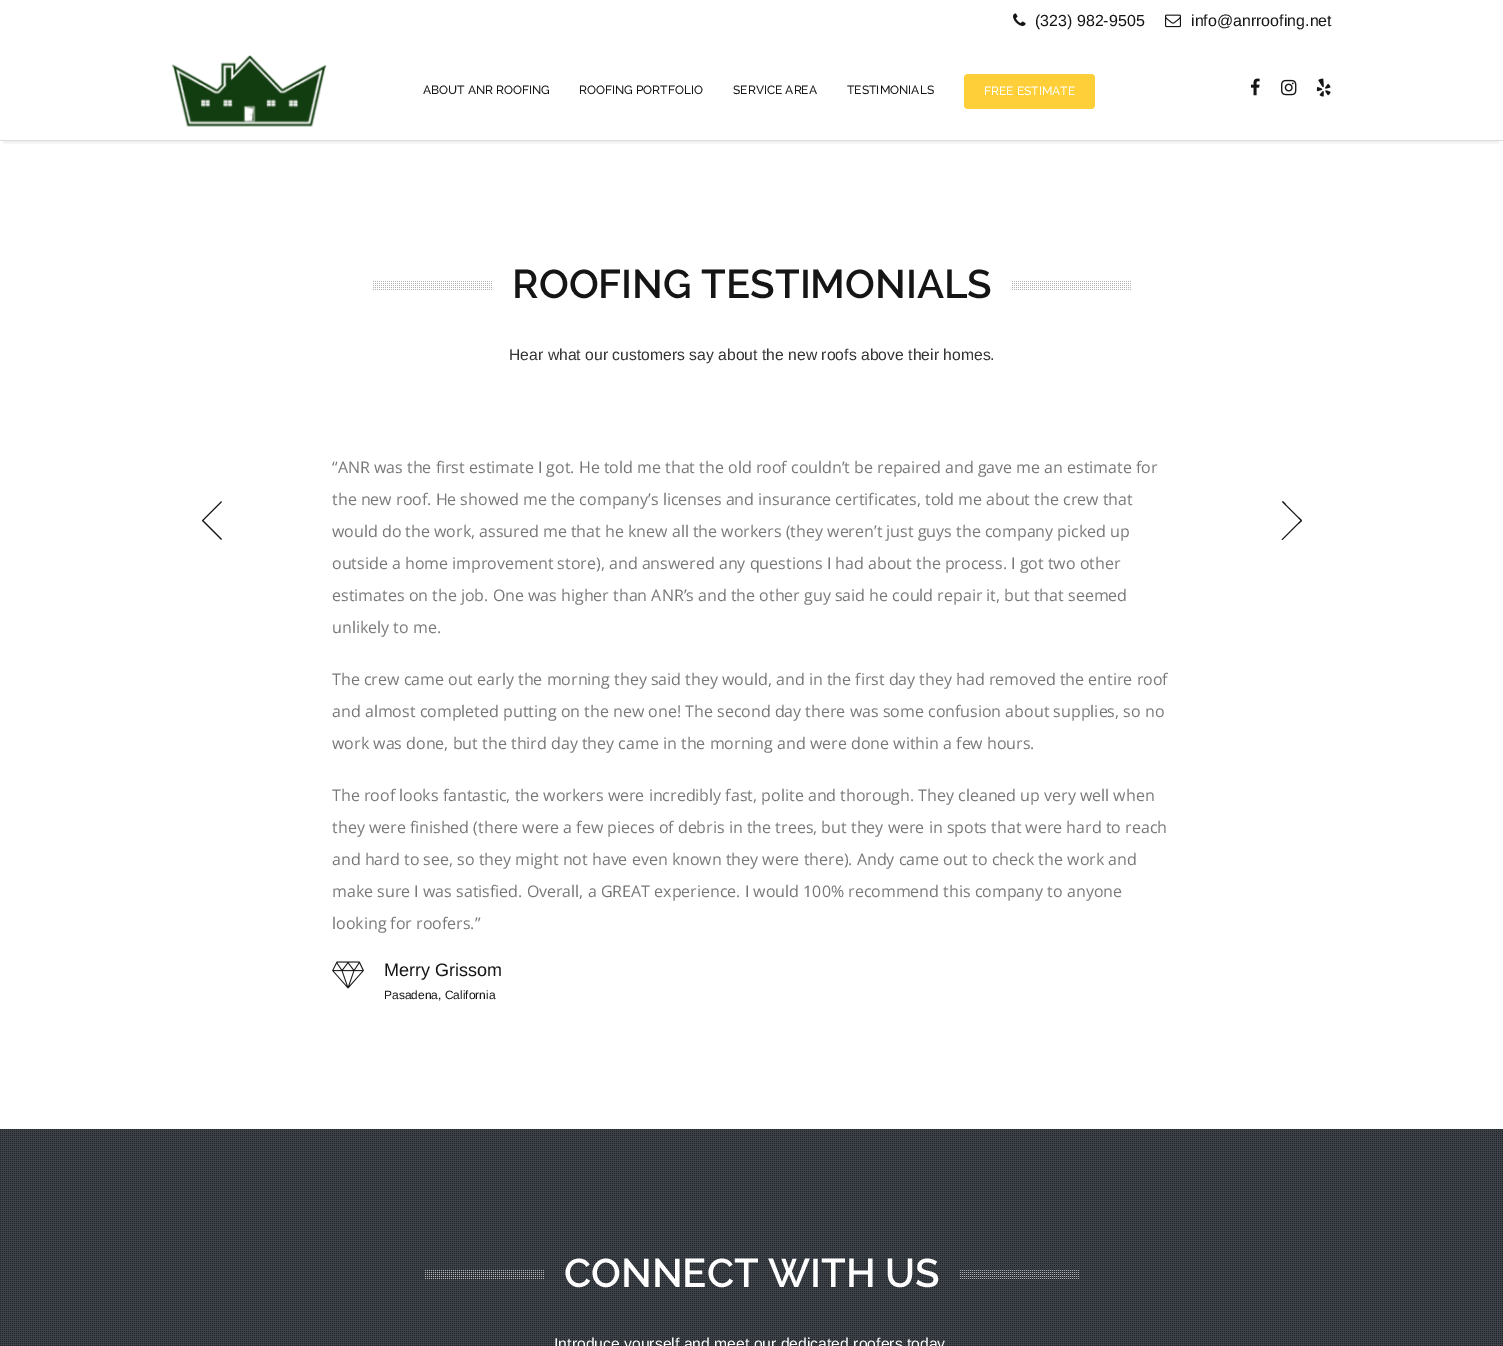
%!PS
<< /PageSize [1503 1346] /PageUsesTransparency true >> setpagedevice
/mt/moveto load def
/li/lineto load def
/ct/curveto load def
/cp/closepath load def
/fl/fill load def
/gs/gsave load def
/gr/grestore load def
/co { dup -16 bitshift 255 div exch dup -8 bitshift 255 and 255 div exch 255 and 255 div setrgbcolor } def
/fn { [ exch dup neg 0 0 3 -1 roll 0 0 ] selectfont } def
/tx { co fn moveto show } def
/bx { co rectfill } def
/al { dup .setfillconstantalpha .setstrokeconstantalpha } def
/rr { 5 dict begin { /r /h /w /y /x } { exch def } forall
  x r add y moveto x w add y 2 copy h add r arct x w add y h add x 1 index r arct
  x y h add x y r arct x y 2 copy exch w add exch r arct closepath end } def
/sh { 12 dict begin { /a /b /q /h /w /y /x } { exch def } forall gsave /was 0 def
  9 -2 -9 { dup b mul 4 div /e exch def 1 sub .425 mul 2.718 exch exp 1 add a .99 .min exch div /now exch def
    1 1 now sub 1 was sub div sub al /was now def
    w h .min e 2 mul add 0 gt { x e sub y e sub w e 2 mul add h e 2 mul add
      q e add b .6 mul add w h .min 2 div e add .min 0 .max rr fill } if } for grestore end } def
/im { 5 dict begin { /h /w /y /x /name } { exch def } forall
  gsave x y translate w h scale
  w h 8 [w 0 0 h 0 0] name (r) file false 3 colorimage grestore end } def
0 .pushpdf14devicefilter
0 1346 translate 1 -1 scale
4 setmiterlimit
0 0 1503 1346 16#FFFFFF bx
gs
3 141 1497 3 rectclip
16#000000 co
4 9 1495 133 0 2.5 .1 sh
gr
0 140 1503 1 16#DDDDDD bx
(media/1.raw) 1013 13 13 13 im
(media/2.raw) 1165 14 16 14 im
(media/3.raw) 172 55 155 72 im
16#FECF39 co
964 74 131 35 4 rr fl
(media/4.raw) 1250 78 10 18 im
(media/5.raw) 1281 79 16 17 im
(media/6.raw) 1316 78 15 19 im
(media/7.raw) 373 281 119 9 im
(media/7.raw) 1012 281 119 9 im
(media/8.raw) 202 501 20 39 im
(media/9.raw) 332 961 32 28 im
16#151515 co
1282.5 540 mt 1282 540 1281.5 539.5 1282 539 ct 1300.5 520.5 li 1282 502 li 1282 501.5 li 1283.5 500.5 1286 504.5 1286 504.5 ct 1298.5 517 li 1303 521.5 1303 520 1298.5 524 ct cp fl
0 1129 1503 217 16#545D66 bx
(media/10.raw) 0 1129 1503 217 im
(media/11.raw) 425 1270 119 9 im
(media/12.raw) 960 1270 119 9 im
(\(323\) 982-9505) 1035 26 /LiberationSans-Regular 16 16#151515 tx
(info@anrroofing.net) 1191 26 /LiberationSans-Regular 16 16#151515 tx
(ABOUT ANR ROOFING) 423 94 /Raleway-Medium 12 16#151515 tx
(ROOFING PORTFOLIO) 579 94 /Raleway-Medium 12 16#151515 tx
(SERVICE AREA) 733 94 /Raleway-Medium 12 16#151515 tx
(TESTIMONIALS) 847 94 /Raleway-Medium 12 16#151515 tx
(FREE ESTIMATE) 984 95 /Raleway-Medium 12 16#FFFFFF tx
(ROOFING TESTIMONIALS) 512 298 /Raleway-SemiBold 40 16#151515 tx
(Hear what our customers say about the new roofs above their homes.) 509 360 /LiberationSans-Regular 15.75 16#333333 tx
(“ANR was the first estimate I got. He told me that the old roof couldn’t be repaired and gave me an estimate for) 332 473 /OpenSans-Regular 16 16#777777 tx
(the new roof. He showed me the company’s licenses and insurance certificates, told me about the crew that) 332 505 /OpenSans-Regular 16 16#777777 tx
(would do the work, assured me that he knew all the workers \(they weren’t just guys the company picked up) 332 537 /OpenSans-Regular 16 16#777777 tx
(outside a home improvement store\), and answered any questions I had about the process. I got two other) 332 569 /OpenSans-Regular 16 16#777777 tx
(estimates on the job. One was higher than ANR’s and the other guy said he could repair it, but that seemed) 332 601 /OpenSans-Regular 16 16#777777 tx
(unlikely to me.) 332 633 /OpenSans-Regular 16 16#777777 tx
(The crew came out early the morning they said they would, and in the first day they had removed the entire roof) 332 685 /OpenSans-Regular 16 16#777777 tx
(and almost completed putting on the new one! The second day there was some confusion about supplies, so no) 332 717 /OpenSans-Regular 16 16#777777 tx
(work was done, but the third day they came in the morning and were done within a few hours.) 332 749 /OpenSans-Regular 16 16#777777 tx
(The roof looks fantastic, the workers were incredibly fast, polite and thorough. They cleaned up very well when) 332 801 /OpenSans-Regular 16 16#777777 tx
(they were finished \(there were a few pieces of debris in the trees, but they were in spots that were hard to reach) 332 833 /OpenSans-Regular 16 16#777777 tx
(and hard to see, so they might not have even known they were there\). Andy came out to check the work and) 332 865 /OpenSans-Regular 16 16#777777 tx
(make sure I was satisfied. Overall, a GREAT experience. I would 100% recommend this company to anyone) 332 897 /OpenSans-Regular 16 16#777777 tx
(looking for roofers.”) 332 929 /OpenSans-Regular 16 16#777777 tx
(Merry Grissom) 384 976 /LiberationSans-Regular 18 16#151515 tx
(Pasadena, California) 384 999 /LiberationSans-Regular 12 16#151515 tx
(CONNECT WITH US) 564 1287 /Raleway-SemiBold 40 16#FFFFFF tx
(Introduce yourself and meet our dedicated roofers today) 554 1349 /LiberationSans-Regular 15.75 16#FFFFFF tx
.poppdf14devicefilter showpage
